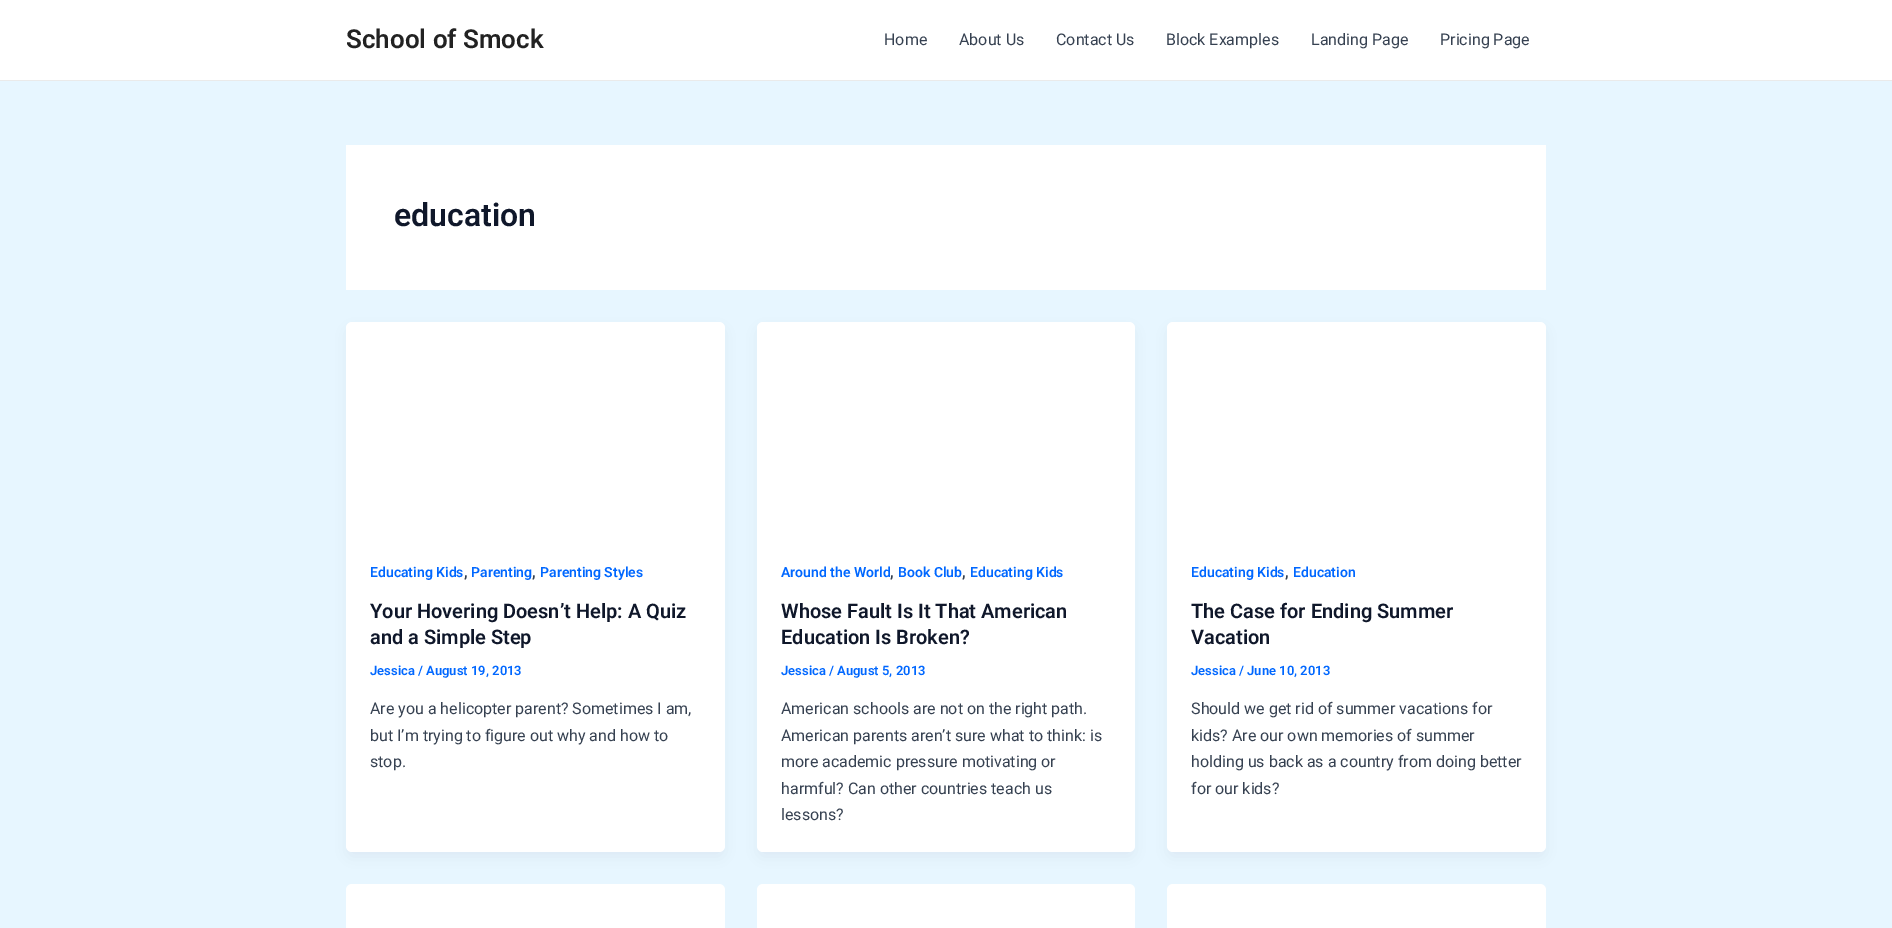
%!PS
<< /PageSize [1892 928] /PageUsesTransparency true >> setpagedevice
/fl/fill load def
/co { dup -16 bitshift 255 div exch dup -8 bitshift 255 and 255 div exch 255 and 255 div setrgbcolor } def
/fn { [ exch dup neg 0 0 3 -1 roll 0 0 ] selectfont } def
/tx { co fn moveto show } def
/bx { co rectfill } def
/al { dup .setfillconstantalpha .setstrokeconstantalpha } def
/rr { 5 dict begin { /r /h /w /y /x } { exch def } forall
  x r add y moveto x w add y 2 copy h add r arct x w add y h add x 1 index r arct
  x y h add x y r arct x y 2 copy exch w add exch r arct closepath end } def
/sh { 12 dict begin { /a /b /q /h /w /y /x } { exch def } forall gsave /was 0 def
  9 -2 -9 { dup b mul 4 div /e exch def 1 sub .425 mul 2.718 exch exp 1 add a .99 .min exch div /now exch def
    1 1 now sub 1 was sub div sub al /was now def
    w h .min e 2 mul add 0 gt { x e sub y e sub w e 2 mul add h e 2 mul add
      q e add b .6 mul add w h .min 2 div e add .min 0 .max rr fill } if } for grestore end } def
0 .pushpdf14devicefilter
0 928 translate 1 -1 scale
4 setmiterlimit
0 0 1892 928 16#E7F6FF bx
0 0 1892 80 16#FFFFFF bx
0 80 1892 1 16#EAEAEA bx
346 145 1200 145 16#FFFFFF bx
16#101828 co
348 330 375 526 4 7.5 .05 sh
16#FFFFFF co
346 322 379 530 6 rr fl
16#101828 co
759 330 374 526 4 7.5 .05 sh
16#FFFFFF co
757 322 378 530 6 rr fl
16#101828 co
1169 330 375 526 4 7.5 .05 sh
16#FFFFFF co
1167 322 379 530 6 rr fl
346 884 379 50 6 rr fl
757 884 378 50 6 rr fl
1167 884 379 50 6 rr fl
(School of Smock) 346 48 /Roboto-SemiBold 26 16#222222 tx
(Home) 884 45 /Roboto-Regular 16 16#364151 tx
(About Us) 959 45 /Roboto-Regular 16 16#364151 tx
(Contact Us) 1056 45 /Roboto-Regular 16 16#364151 tx
(Block Examples) 1166 45 /Roboto-Regular 16 16#364151 tx
(Landing Page) 1311 45 /Roboto-Regular 16 16#364151 tx
(Pricing Page) 1440 45 /Roboto-Regular 16 16#364151 tx
(education) 394 226 /Roboto-SemiBold 32 16#0F172A tx
(Educating Kids) 370 577 /Roboto-SemiBold 14 16#0067FF tx
(,) 464 577 /Roboto-SemiBold 16 16#364151 tx
(Parenting) 471 577 /Roboto-SemiBold 14 16#0067FF tx
(,) 532 577 /Roboto-SemiBold 16 16#364151 tx
(Parenting Styles) 540 577 /Roboto-SemiBold 14 16#0067FF tx
(Your Hovering Doesn’t Help: A Quiz) 370 618 /Roboto-SemiBold 20 16#0F172A tx
(and a Simple Step) 370 644 /Roboto-SemiBold 20 16#0F172A tx
(Jessica / August 19, 2013) 370 675 /Roboto-SemiBold 13 16#0067FF tx
(Are you a helicopter parent? Sometimes I am,) 370 714 /Roboto-Regular 16 16#364151 tx
(but I’m trying to figure out why and how to) 370 741 /Roboto-Regular 16 16#364151 tx
(stop.) 370 767 /Roboto-Regular 16 16#364151 tx
(Around the World) 781 577 /Roboto-SemiBold 14 16#0067FF tx
(,) 890 577 /Roboto-SemiBold 16 16#364151 tx
(Book Club) 898 577 /Roboto-SemiBold 14 16#0067FF tx
(,) 962 577 /Roboto-SemiBold 16 16#364151 tx
(Educating Kids) 970 577 /Roboto-SemiBold 14 16#0067FF tx
(Whose Fault Is It That American) 781 618 /Roboto-SemiBold 20 16#0F172A tx
(Education Is Broken?) 781 644 /Roboto-SemiBold 20 16#0F172A tx
(Jessica / August 5, 2013) 781 675 /Roboto-SemiBold 13 16#0067FF tx
(American schools are not on the right path.) 781 714 /Roboto-Regular 16 16#364151 tx
(American parents aren’t sure what to think: is) 781 741 /Roboto-Regular 16 16#364151 tx
(more academic pressure motivating or) 781 767 /Roboto-Regular 16 16#364151 tx
(harmful? Can other countries teach us) 781 794 /Roboto-Regular 16 16#364151 tx
(lessons?) 781 820 /Roboto-Regular 16 16#364151 tx
(Educating Kids) 1191 577 /Roboto-SemiBold 14 16#0067FF tx
(,) 1285 577 /Roboto-SemiBold 16 16#364151 tx
(Education) 1293 577 /Roboto-SemiBold 14 16#0067FF tx
(The Case for Ending Summer) 1191 618 /Roboto-SemiBold 20 16#0F172A tx
(Vacation) 1191 644 /Roboto-SemiBold 20 16#0F172A tx
(Jessica / June 10, 2013) 1191 675 /Roboto-SemiBold 13 16#0067FF tx
(Should we get rid of summer vacations for) 1191 714 /Roboto-Regular 16 16#364151 tx
(kids? Are our own memories of summer) 1191 741 /Roboto-Regular 16 16#364151 tx
(holding us back as a country from doing better) 1191 767 /Roboto-Regular 16 16#364151 tx
(for our kids?) 1191 794 /Roboto-Regular 16 16#364151 tx
.poppdf14devicefilter showpage
